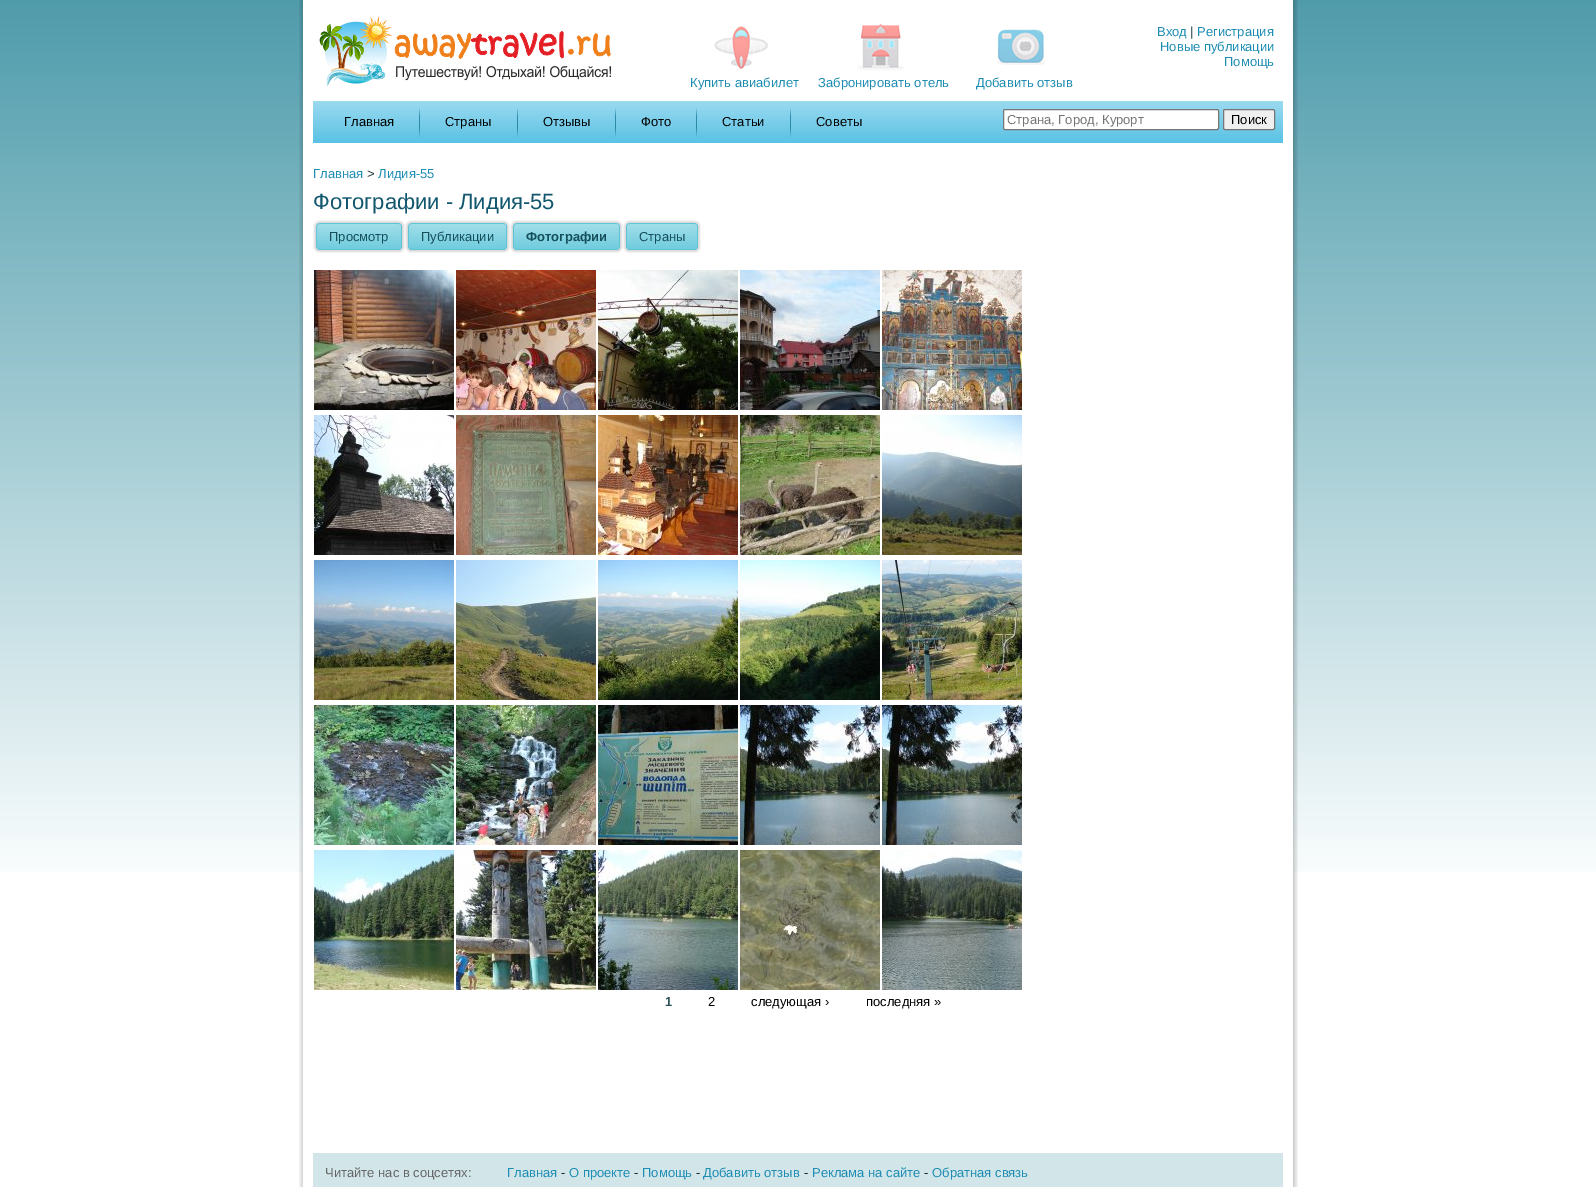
%!PS
<< /PageSize [1596 1187] >> setpagedevice
/fl/fill load def
/st/stroke load def
/gs/gsave load def
/gr/grestore load def
/co { dup -16 bitshift 255 div exch dup -8 bitshift 255 and 255 div exch 255 and 255 div setrgbcolor } def
/fn { [ exch dup neg 0 0 3 -1 roll 0 0 ] selectfont } def
/tx { co fn moveto show } def
/bx { co rectfill } def
/rr { 5 dict begin { /r /h /w /y /x } { exch def } forall
  x r add y moveto x w add y 2 copy h add r arct x w add y h add x 1 index r arct
  x y h add x y r arct x y 2 copy exch w add exch r arct closepath end } def
/im { 5 dict begin { /h /w /y /x /name } { exch def } forall
  gsave x y translate w h scale
  w h 8 [w 0 0 h 0 0] name (r) file false 3 colorimage grestore end } def
0 1187 translate 1 -1 scale
4 setmiterlimit
0 0 1596 1187 16#FFFFFF bx
(media/1.raw) 0 0 1596 872 im
(media/2.raw) 299 0 20 6 im
319 0 958 872 16#FFFFFF bx
(media/3.raw) 1277 0 21 6 im
(media/4.raw) 299 6 20 1181 im
(media/5.raw) 319 16 293 71 im
(media/6.raw) 714 25 54 44 im
(media/7.raw) 857 23 47 48 im
(media/8.raw) 997 29 48 36 im
(media/40.raw) 1277 6 21 1181 im
(media/9.raw) 313 101 970 42 im
(media/10.raw) 419 108 1 29 im
(media/10.raw) 517 108 1 29 im
(media/10.raw) 615 108 1 29 im
(media/10.raw) 696 108 1 29 im
(media/10.raw) 790 108 1 29 im
1003.5 109.5 215 20 1.5 rr gs fl gr
16#767676 co
st
16#EFEFEF co
1223.5 109.5 51 20 1.5 rr gs fl gr
16#767676 co
st
(media/11.raw) 313 220 82 33 im
(media/12.raw) 395 220 10 33 im
(media/13.raw) 405 220 95 33 im
(media/12.raw) 500 220 10 33 im
(media/14.raw) 510 220 103 33 im
(media/12.raw) 613 220 10 33 im
(media/15.raw) 623 220 68 33 im
(media/12.raw) 691 220 10 33 im
(media/16.raw) 314 270 140 140 im
(media/17.raw) 456 270 140 140 im
(media/18.raw) 598 270 140 140 im
(media/19.raw) 740 270 140 140 im
(media/20.raw) 882 270 140 140 im
(media/21.raw) 314 415 140 140 im
(media/22.raw) 456 415 140 140 im
(media/23.raw) 598 415 140 140 im
(media/24.raw) 740 415 140 140 im
(media/25.raw) 882 415 140 140 im
(media/26.raw) 314 560 140 140 im
(media/27.raw) 456 560 140 140 im
(media/28.raw) 598 560 140 140 im
(media/29.raw) 740 560 140 140 im
(media/30.raw) 882 560 140 140 im
(media/31.raw) 314 705 140 140 im
(media/32.raw) 456 705 140 140 im
(media/33.raw) 598 705 140 140 im
(media/34.raw) 740 705 140 140 im
(media/34.raw) 882 705 140 140 im
(media/35.raw) 314 850 140 140 im
(media/36.raw) 456 850 140 140 im
(media/37.raw) 598 850 140 140 im
(media/38.raw) 740 850 140 140 im
(media/39.raw) 882 850 140 140 im
313 1153 970 34 16#D2E6EA bx
(Вход) 1157 36 /LiberationSans-Regular 13 16#1D8DB3 tx
(|) 1190 36 /LiberationSans-Regular 13 16#1A3337 tx
(Регистрация) 1197 36 /LiberationSans-Regular 13 16#1D8DB3 tx
(Новые публикации) 1160 51 /LiberationSans-Regular 13 16#1D8DB3 tx
(Помощь) 1224 66 /LiberationSans-Regular 13 16#1D8DB3 tx
(Купить авиабилет) 690 87 /LiberationSans-Regular 13 16#1D8DB3 tx
(Забронировать отель) 818 87 /LiberationSans-Regular 13 16#1D8DB3 tx
(Добавить отзыв) 976 87 /LiberationSans-Regular 13 16#1D8DB3 tx
(Главная) 344 126 /LiberationSans-Regular 13 16#000000 tx
(Страны) 445 126 /LiberationSans-Regular 13 16#000000 tx
(Отзывы) 543 126 /LiberationSans-Regular 13 16#000000 tx
(Фото) 641 126 /LiberationSans-Regular 13 16#000000 tx
(Статьи) 722 126 /LiberationSans-Regular 13 16#000000 tx
(Советы) 816 126 /LiberationSans-Regular 13 16#000000 tx
(Страна, Город, Курорт) 1007 124 /LiberationSans-Regular 13 16#757575 tx
(Поиск) 1231 124 /LiberationSans-Regular 13 16#000000 tx
(Главная) 313 178 /LiberationSans-Regular 13 16#1D8DB3 tx
(>) 367 178 /LiberationSans-Regular 13 16#1A3337 tx
(Лидия-55) 378 178 /LiberationSans-Regular 13 16#1D8DB3 tx
(Фотографии - Лидия-55) 313 209 /LiberationSans-Regular 22 16#12576E tx
(Просмотр) 329 241 /LiberationSans-Regular 13 16#154F5B tx
(Публикации) 421 241 /LiberationSans-Regular 13 16#154F5B tx
(Фотографии) 526 241 /LiberationSans-Bold 13 16#154F5B tx
(Страны) 639 241 /LiberationSans-Regular 13 16#154F5B tx
(1) 665 1006 /LiberationSans-Bold 13 16#294F57 tx
(2) 708 1006 /LiberationSans-Regular 13 16#000000 tx
(следующая ›) 751 1006 /LiberationSans-Regular 13 16#000000 tx
(последняя ») 866 1006 /LiberationSans-Regular 13 16#000000 tx
(Читайте нас в соцсетях:) 325 1177 /LiberationSans-Regular 13 16#666666 tx
(Главная) 507 1177 /LiberationSans-Regular 13 16#1D8DB3 tx
(-) 561 1177 /LiberationSans-Regular 13 16#0D2F36 tx
(О проекте) 569 1177 /LiberationSans-Regular 13 16#1D8DB3 tx
(-) 634 1177 /LiberationSans-Regular 13 16#0D2F36 tx
(Помощь) 642 1177 /LiberationSans-Regular 13 16#1D8DB3 tx
(-) 696 1177 /LiberationSans-Regular 13 16#0D2F36 tx
(Добавить отзыв) 703 1177 /LiberationSans-Regular 13 16#1D8DB3 tx
(-) 804 1177 /LiberationSans-Regular 13 16#0D2F36 tx
(Реклама на сайте) 812 1177 /LiberationSans-Regular 13 16#1D8DB3 tx
(-) 924 1177 /LiberationSans-Regular 13 16#0D2F36 tx
(Обратная связь) 932 1177 /LiberationSans-Regular 13 16#1D8DB3 tx
showpage
